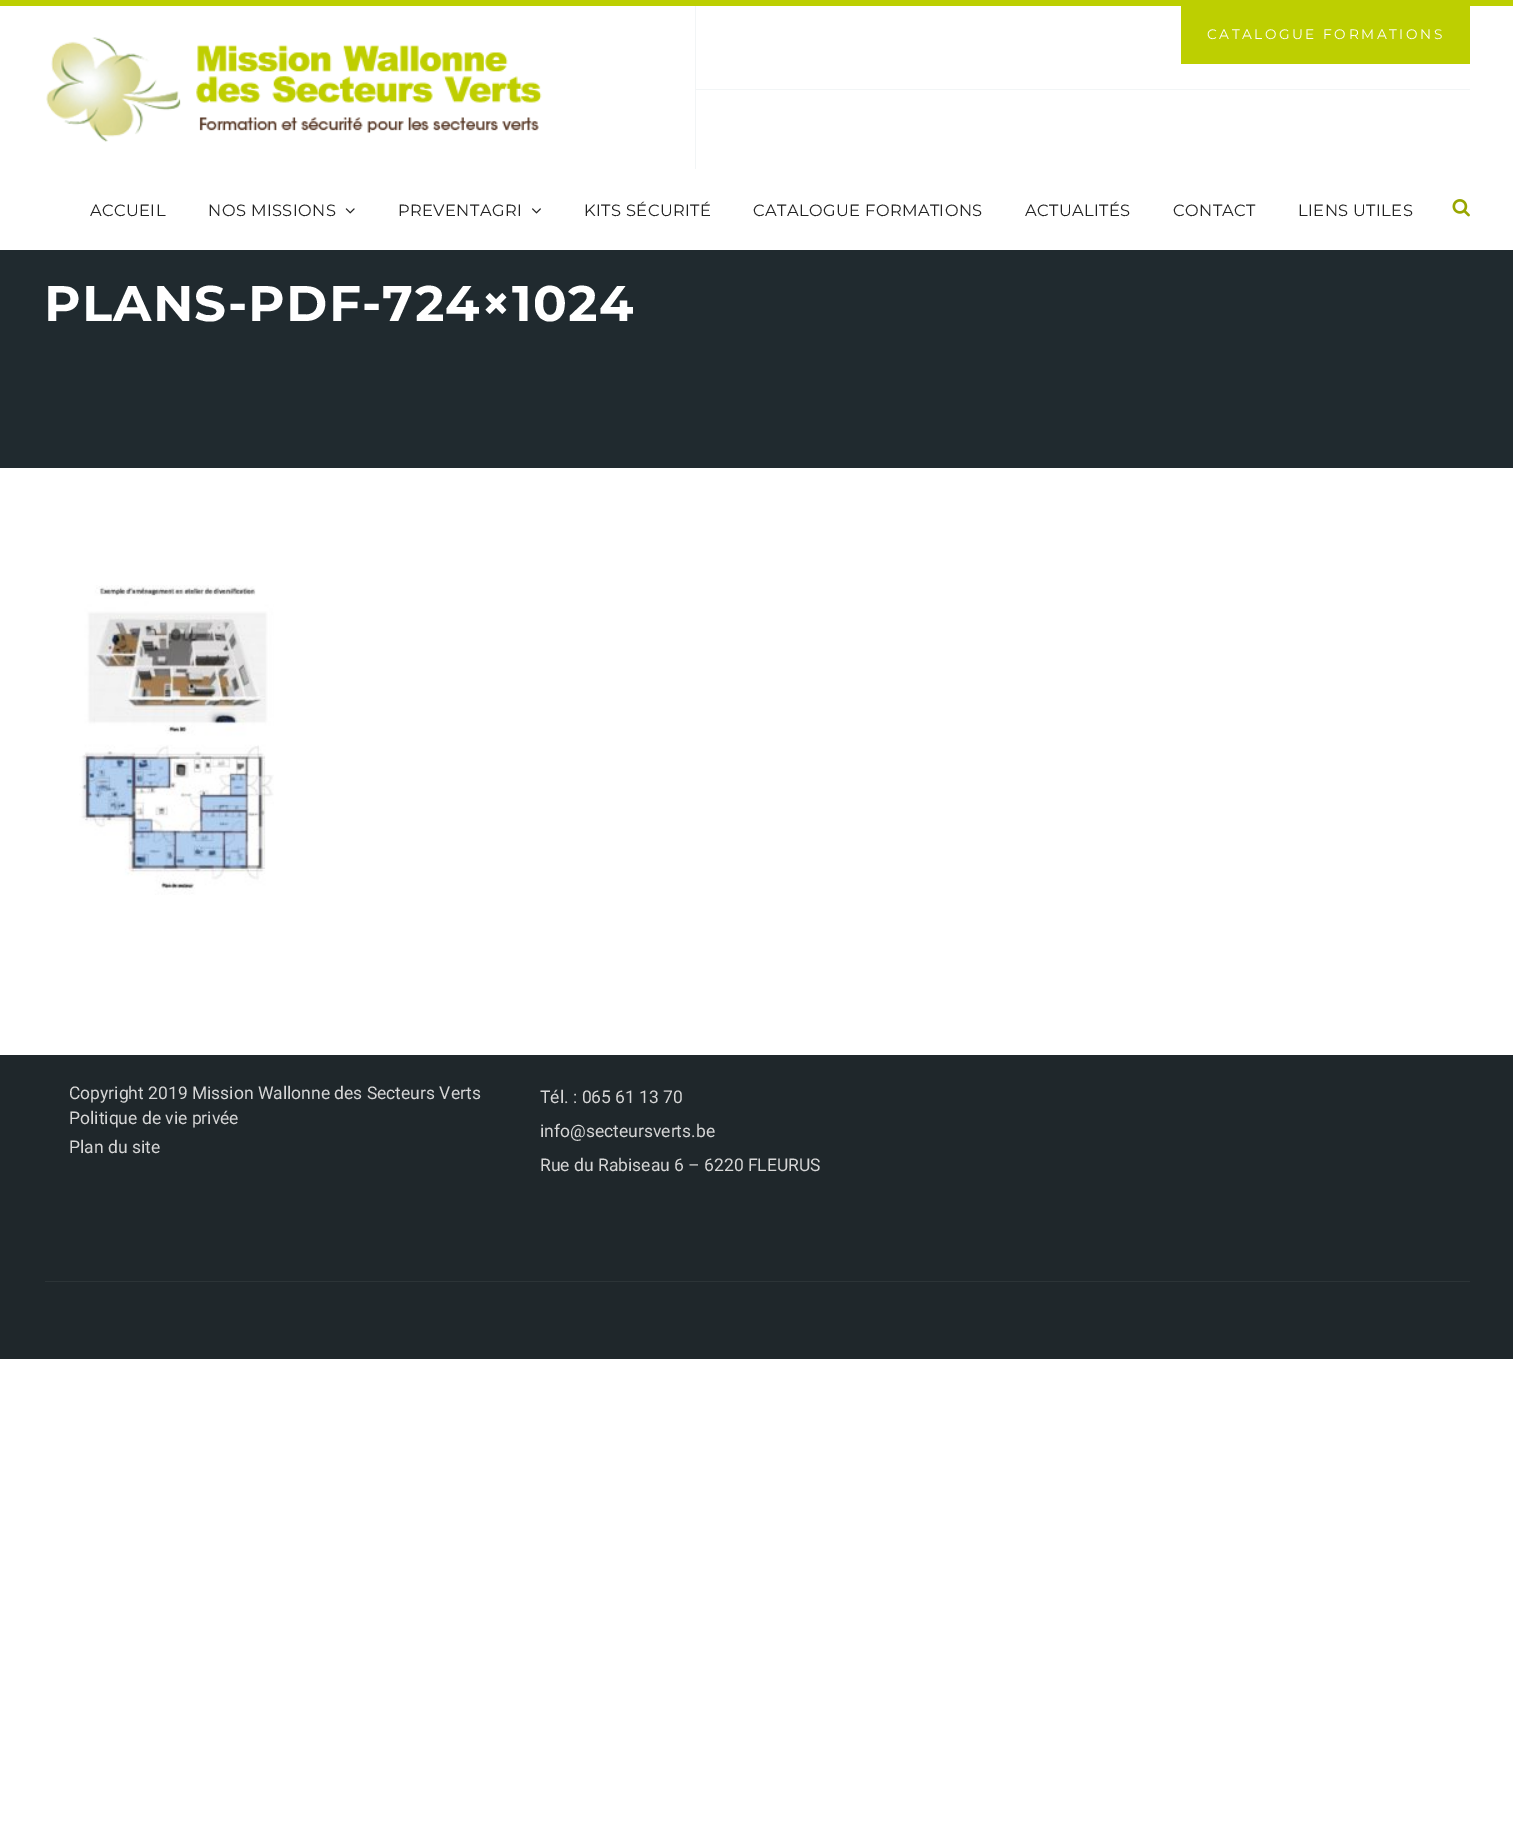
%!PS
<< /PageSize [1513 1834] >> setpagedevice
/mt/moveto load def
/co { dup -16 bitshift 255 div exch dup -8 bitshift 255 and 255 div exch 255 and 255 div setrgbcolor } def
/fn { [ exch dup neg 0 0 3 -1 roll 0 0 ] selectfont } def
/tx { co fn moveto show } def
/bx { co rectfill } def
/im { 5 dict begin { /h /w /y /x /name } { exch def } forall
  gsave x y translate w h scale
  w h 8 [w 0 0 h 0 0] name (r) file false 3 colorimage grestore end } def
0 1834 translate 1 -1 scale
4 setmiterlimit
0 0 1513 1834 16#FFFFFF bx
0 0 1513 6 16#BDCF01 bx
695 6 1 163 16#F2F5F6 bx
(media/1.raw) 46 37 496 105 im
696 89 774 1 16#F2F5F6 bx
1181 6 289 58 16#BDCF01 bx
(media/2.raw) 345 208 10 6 im
(media/3.raw) 532 208 9 6 im
(media/4.raw) 1452 199 18 18 im
0 250 1513 218 16#202A2F bx
(media/5.raw) 79 585 195 310 im
0 1055 1513 304 16#1F272B bx
45 1281 1425 1 16#2C3437 bx
/Montserrat-Regular 13.75 fn
16#FFFFFF co
1207 39 mt 2.5 0 (CATALOGUE FORMATIONS) ashow
/Montserrat-Regular 16.25 fn
16#222222 co
90 216 mt .4 0 (ACCUEIL) ashow
208 216 mt .4 0 (NOS MISSIONS) ashow
398 216 mt .4 0 (PREVENTAGRI) ashow
584 216 mt .4 0 (KITS SÉCURITÉ) ashow
753 216 mt .4 0 (CATALOGUE FORMATIONS) ashow
1025 216 mt .4 0 (ACTUALITÉS) ashow
1173 216 mt .4 0 (CONTACT) ashow
1298 216 mt .4 0 (LIENS UTILES) ashow
/Montserrat-Bold 50 fn
16#FFFFFF co
44 321 mt 1.25 0 (PLANS-PDF-724×1024) ashow
(Copyright 2019 Mission Wallonne des Secteurs Verts) 69 1099 /Roboto-Regular 17.5 16#D6D6D6 tx
(Politique de vie privée) 69 1124 /Roboto-Regular 17.5 16#D6D6D6 tx
(Plan du site) 69 1153 /Roboto-Regular 17.5 16#D6D6D6 tx
(Tél. : 065 61 13 70) 540 1103 /Roboto-Regular 17.5 16#D6D6D6 tx
(info@secteursverts.be) 540 1137 /Roboto-Regular 17.5 16#D6D6D6 tx
(Rue du Rabiseau 6 – 6220 FLEURUS) 540 1171 /Roboto-Regular 17.5 16#D6D6D6 tx
showpage
